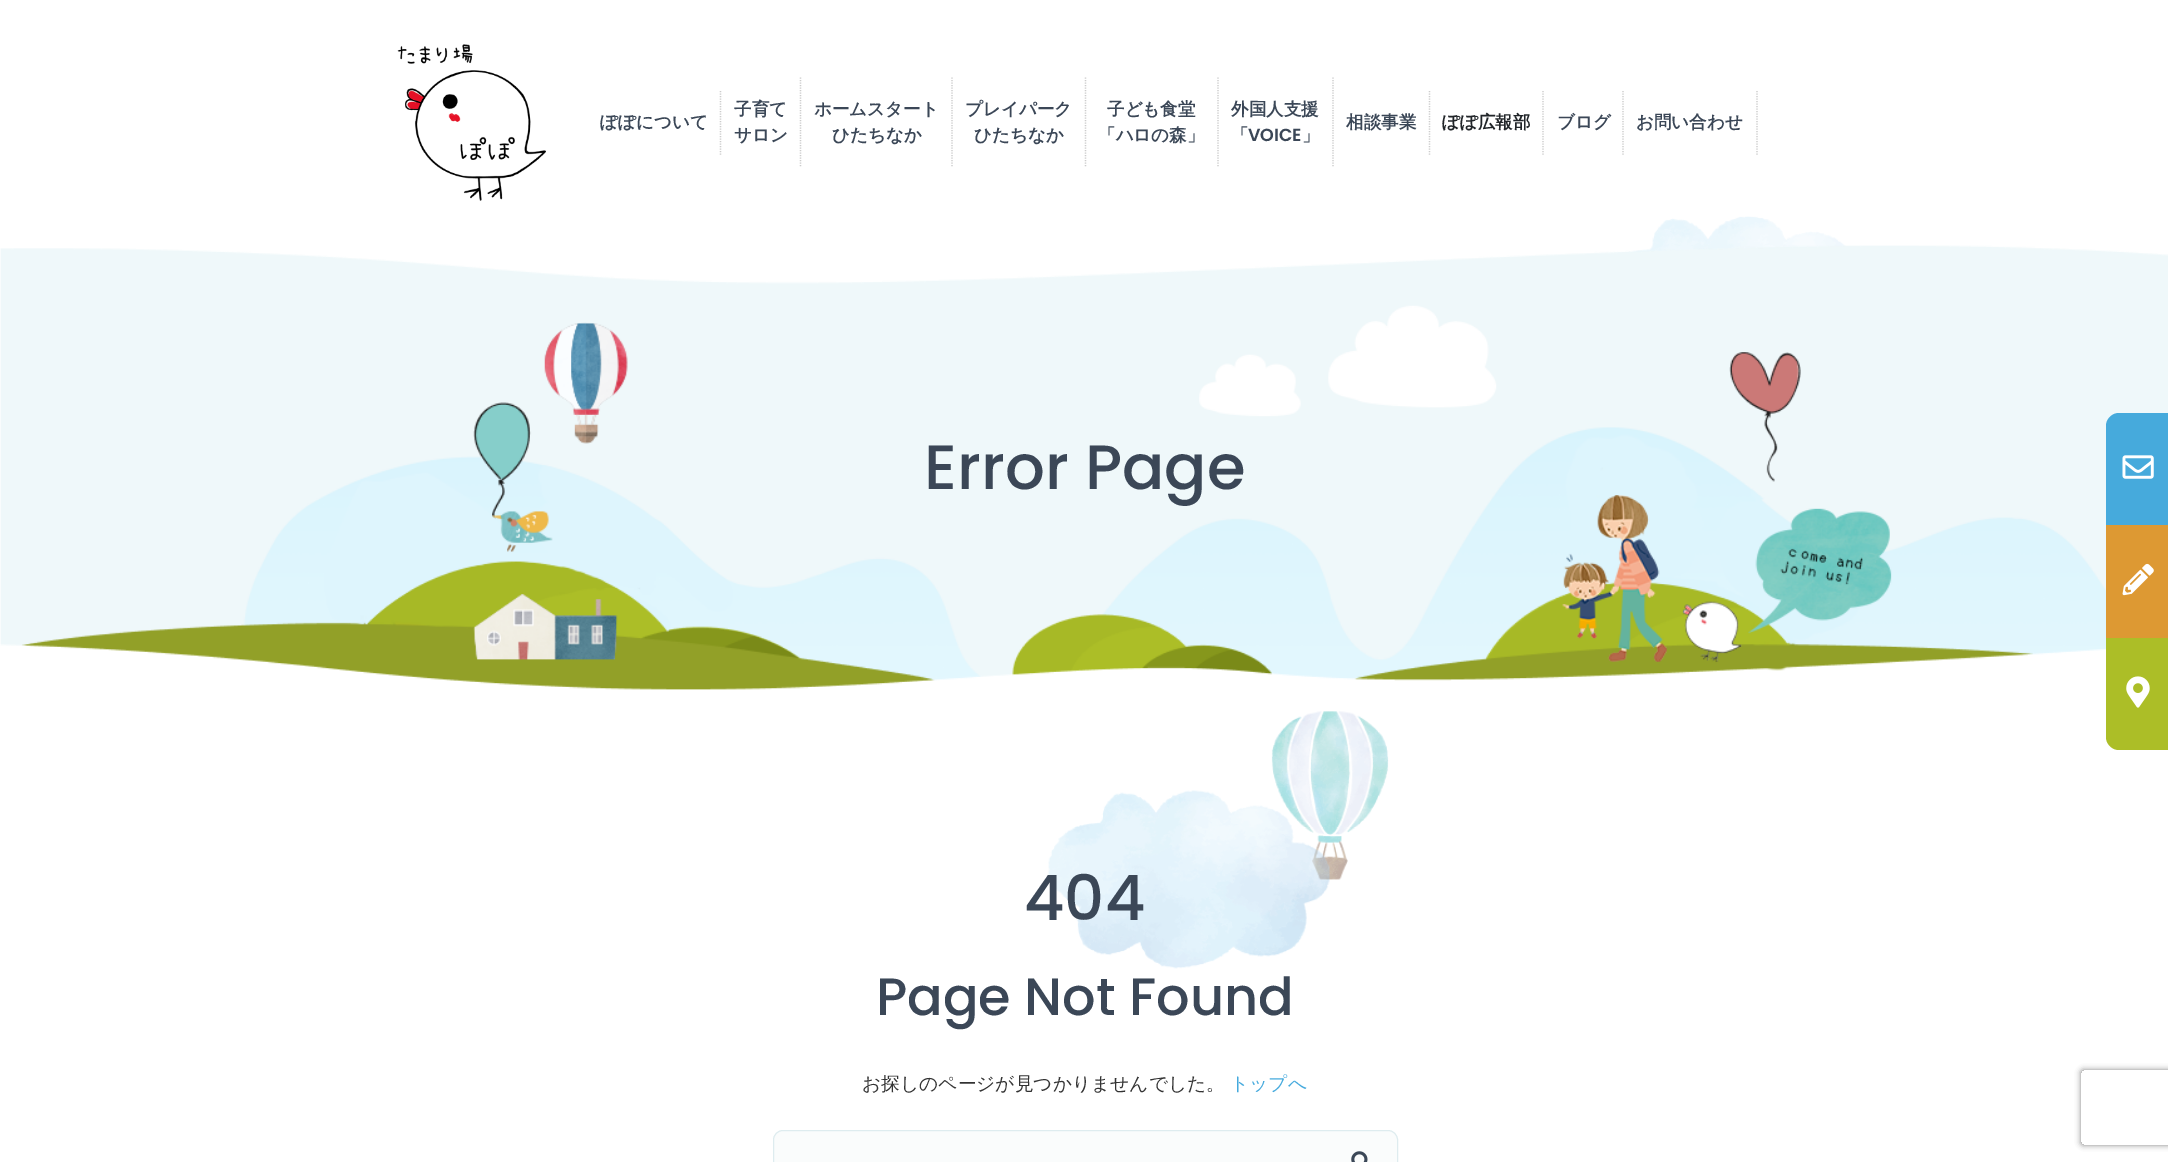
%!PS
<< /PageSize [2168 1162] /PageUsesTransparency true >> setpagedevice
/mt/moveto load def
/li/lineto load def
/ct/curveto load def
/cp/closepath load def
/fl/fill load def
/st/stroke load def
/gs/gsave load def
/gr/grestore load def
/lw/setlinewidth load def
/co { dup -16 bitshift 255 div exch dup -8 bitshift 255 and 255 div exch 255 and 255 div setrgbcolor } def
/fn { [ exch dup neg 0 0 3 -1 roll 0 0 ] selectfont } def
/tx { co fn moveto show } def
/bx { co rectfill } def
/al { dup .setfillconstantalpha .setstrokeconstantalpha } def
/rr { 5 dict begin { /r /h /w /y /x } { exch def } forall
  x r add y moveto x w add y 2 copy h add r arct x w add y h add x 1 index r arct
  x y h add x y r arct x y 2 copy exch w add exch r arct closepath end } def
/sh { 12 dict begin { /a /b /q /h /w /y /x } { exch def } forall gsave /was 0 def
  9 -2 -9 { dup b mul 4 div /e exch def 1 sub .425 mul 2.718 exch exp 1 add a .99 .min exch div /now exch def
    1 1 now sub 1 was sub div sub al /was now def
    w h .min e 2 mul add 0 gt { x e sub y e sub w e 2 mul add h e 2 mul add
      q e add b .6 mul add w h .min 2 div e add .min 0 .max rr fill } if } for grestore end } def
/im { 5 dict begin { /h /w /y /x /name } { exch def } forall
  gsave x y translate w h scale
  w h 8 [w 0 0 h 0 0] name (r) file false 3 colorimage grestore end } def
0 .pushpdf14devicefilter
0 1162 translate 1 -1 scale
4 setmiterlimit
0 0 2168 1162 16#FFFFFF bx
(media/1.raw) 1048 216 798 753 im
(media/2.raw) 397 44 149 157 im
16#CCCCCC co
1.2 lw
[1.25 1.25] 0 setdash
720.5 91 mt 720.5 155 li st
800.5 77.5 mt 800.5 167.5 li st
952 77.5 mt 952 167.5 li st
1085.5 77.5 mt 1085.5 167.5 li st
1218 77.5 mt 1218 167.5 li st
1333 77.5 mt 1333 167.5 li st
1429.5 91 mt 1429.5 155 li st
1543 91 mt 1543 155 li st
1623 91 mt 1623 155 li st
1757 91 mt 1757 155 li st
(media/3.raw) 0 245 2168 445 im
16#46AADC co
2119 413 mt 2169 413 li 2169 525 li 2106 525 li 2106 426 li 2106 419 2112 413 2119 413 ct cp fl
(media/4.raw) 2122 455 32 24 im
2106 525 62 113 16#DD9933 bx
(media/5.raw) 2122 563 32 33 im
16#ACBE27 co
2106 638 mt 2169 638 li 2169 750 li 2119 750 li 2112 750 2106 744 2106 737 ct cp fl
(media/6.raw) 2126 676 24 32 im
16#FAFCFC co
773.5 1130.5 624 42 9.5 rr gs fl gr
16#DEECEF co
1 lw
[] 0 setdash
st
(media/7.raw) 1351 1151 17 11 im
gs
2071 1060 mt 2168 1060 li 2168 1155 li 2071 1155 li cp 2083.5 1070 mt 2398.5 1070 li 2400 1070 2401 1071 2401 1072.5 ct 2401 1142.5 li 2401 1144 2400 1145 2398.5 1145 ct 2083.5 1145 li 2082 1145 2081 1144 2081 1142.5 ct 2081 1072.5 li 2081 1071 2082 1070 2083.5 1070 ct cp eoclip newpath
16#808080 co
2081 1070 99 75 2.5 3 1 sh
gr
(ぽぽについて) 600 128 /WenQuanYiZenHei-Bold 17.5 16#3B4757 tx
(子育て) 734 115 /WenQuanYiZenHei-Bold 17.5 16#3B4757 tx
(サロン) 734 141 /WenQuanYiZenHei-Bold 17.5 16#3B4757 tx
(ホームスタート) 814 115 /WenQuanYiZenHei-Bold 17.5 16#3B4757 tx
(ひたちなか) 832 141 /WenQuanYiZenHei-Bold 17.5 16#3B4757 tx
(プレイパーク) 965 115 /WenQuanYiZenHei-Bold 17.5 16#3B4757 tx
(ひたちなか) 974 141 /WenQuanYiZenHei-Bold 17.5 16#3B4757 tx
(子ども食堂) 1107 115 /WenQuanYiZenHei-Bold 17.5 16#3B4757 tx
(「ハロの森」) 1098 141 /WenQuanYiZenHei-Bold 17.5 16#3B4757 tx
(外国人支援) 1231 115 /WenQuanYiZenHei-Bold 17.5 16#3B4757 tx
(「) 1231 141 /WenQuanYiZenHei-Bold 17.5 16#3B4757 tx
(VOICE) 1248 141 /Poppins-SemiBold 17.5 16#3B4757 tx
(」) 1302 141 /WenQuanYiZenHei-Bold 17.5 16#3B4757 tx
(相談事業) 1346 128 /WenQuanYiZenHei-Bold 17.5 16#3B4757 tx
(ぽぽ広報部) 1442 128 /WenQuanYiZenHei-Bold 17.5 16#212529 tx
(ブログ) 1557 128 /WenQuanYiZenHei-Bold 17.5 16#3B4757 tx
(お問い合わせ) 1636 128 /WenQuanYiZenHei-Bold 17.5 16#3B4757 tx
(Error Page) 924 489 /Poppins-Medium 62.5 16#3B4757 tx
(404) 1024 920 /Poppins-Medium 62.5 16#3B4757 tx
(Page Not Found) 876 1015 /Poppins-Medium 52.5 16#3B4757 tx
(お探しのページが見つかりませんでした。) 862 1090 /WenQuanYiZenHei-Medium 18.75 16#333333 tx
(トップへ) 1230 1090 /WenQuanYiZenHei-Medium 18.75 16#46AADD tx
.poppdf14devicefilter showpage
